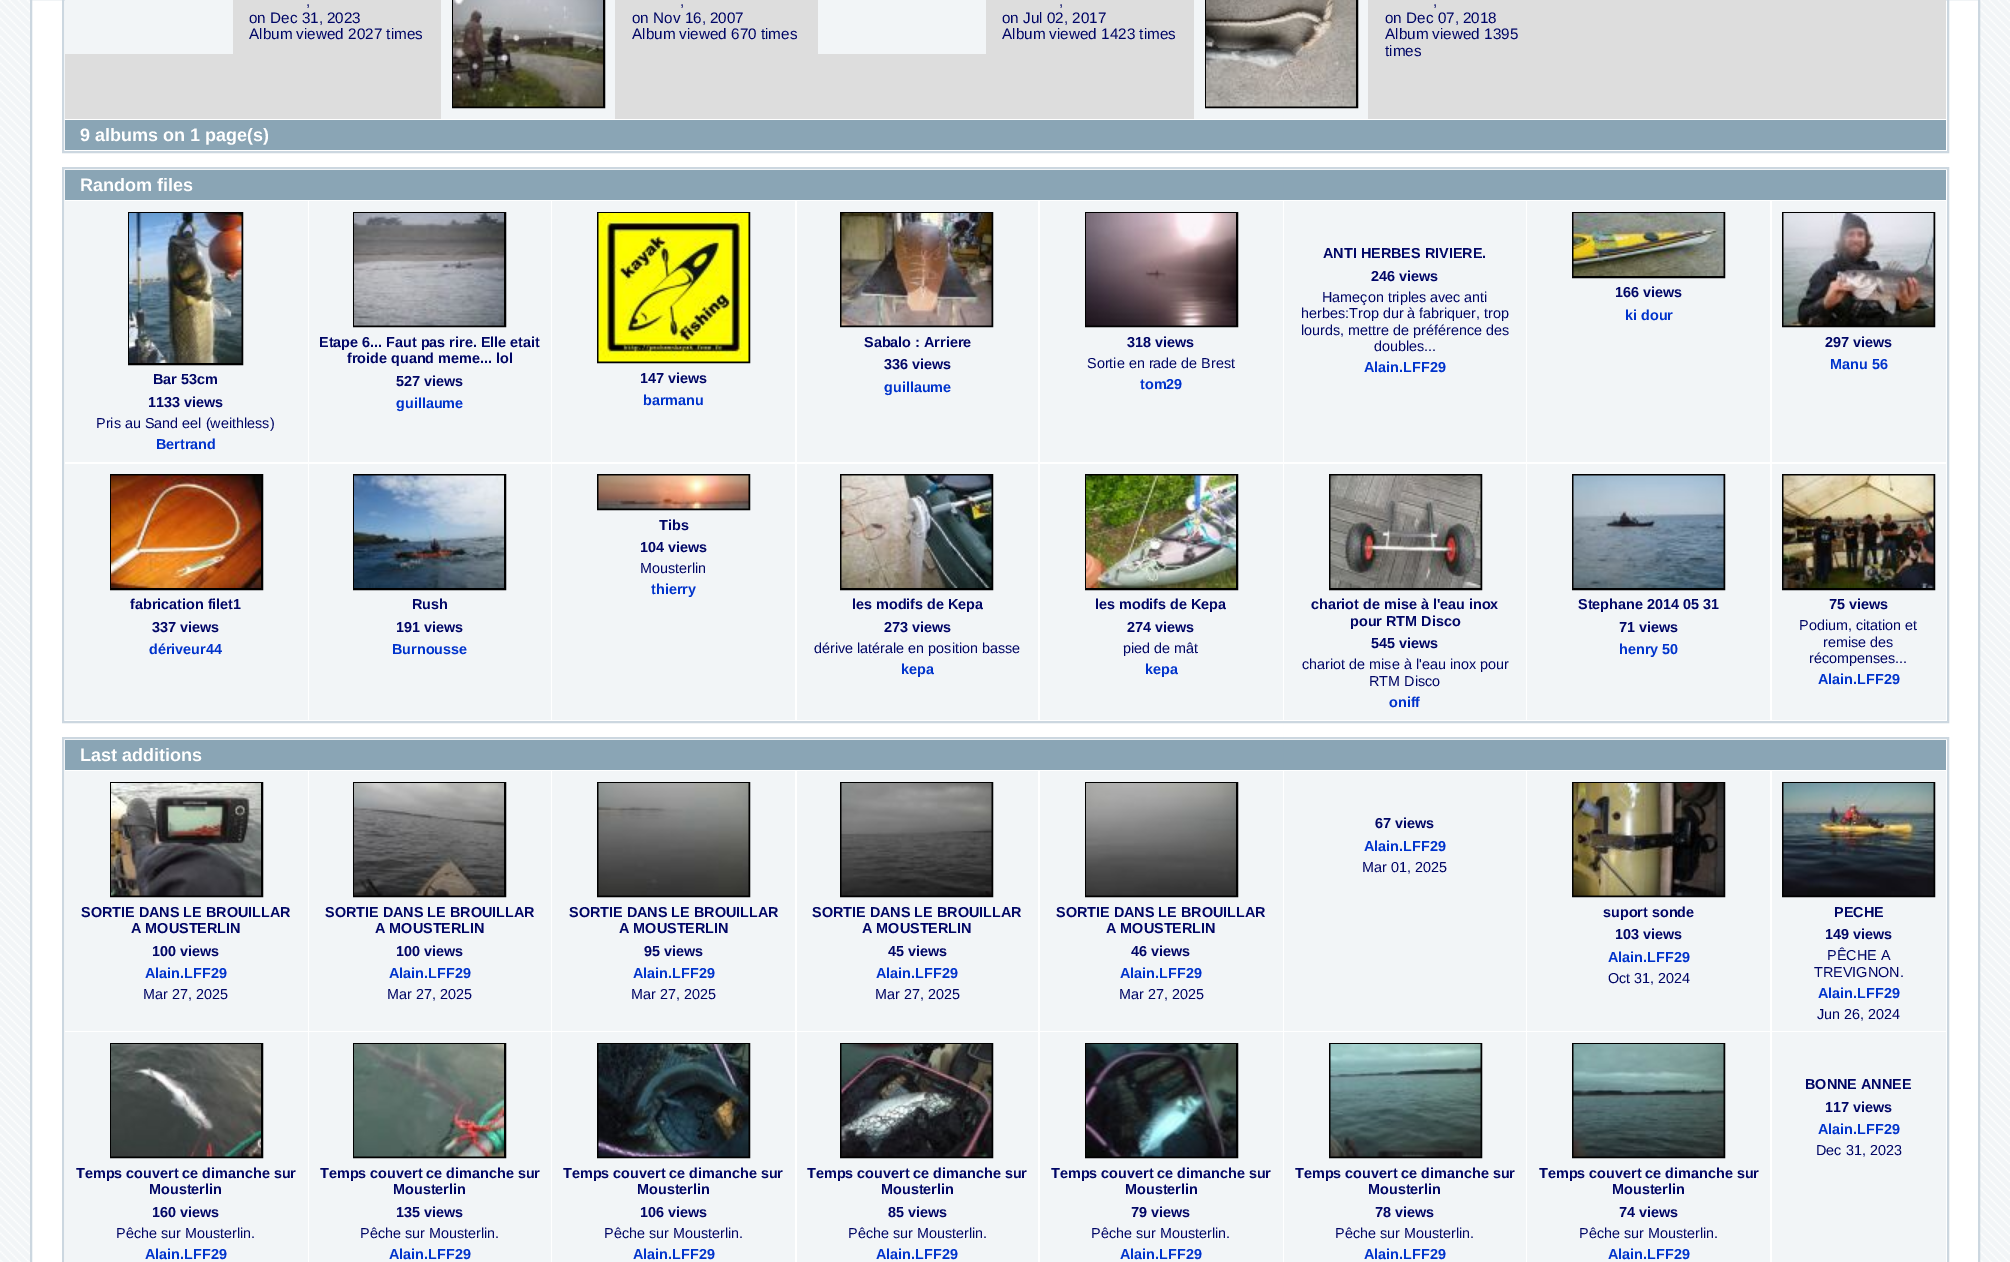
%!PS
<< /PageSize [2010 1262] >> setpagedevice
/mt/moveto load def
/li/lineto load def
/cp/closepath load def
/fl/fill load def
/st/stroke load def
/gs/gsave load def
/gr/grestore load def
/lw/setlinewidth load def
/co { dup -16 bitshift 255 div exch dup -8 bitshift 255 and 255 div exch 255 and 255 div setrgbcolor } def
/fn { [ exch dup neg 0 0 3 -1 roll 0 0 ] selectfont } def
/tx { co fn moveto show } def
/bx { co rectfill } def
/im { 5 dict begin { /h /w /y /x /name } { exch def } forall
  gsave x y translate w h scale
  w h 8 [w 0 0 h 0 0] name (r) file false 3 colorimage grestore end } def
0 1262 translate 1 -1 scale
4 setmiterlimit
0 0 2010 1262 16#F2F5F7 bx
(media/1.raw) 0 0 2010 1262 im
16#FFFFFF co
31 -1 mt 1979 -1 li 1979 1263 li 31 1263 li cp gs fl gr
16#CCD7E0 co
2 lw
st
63 -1 1885 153 rectstroke
65 0 1881 119 16#DDDDDD bx
65 0 168 54 16#F2F5F7 bx
441 0 174 119 16#F2F5F7 bx
16#000000 co
453 -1 151 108 rectstroke
(media/2.raw) 453 0 150 107 im
818 0 168 54 16#F2F5F7 bx
1194 0 174 119 16#F2F5F7 bx
16#000000 co
1206 -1 151 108 rectstroke
(media/3.raw) 1206 0 150 107 im
65 120 1881 30 16#8AA5B5 bx
16#CCD7E0 co
63 168 1885 554 rectstroke
65 170 1881 30 16#8AA5B5 bx
1284 201 242 261 16#F2F5F7 bx
1527 201 243 261 16#F2F5F7 bx
16#000000 co
1573 213 151 64 rectstroke
(media/4.raw) 1573 213 151 63 im
309 201 242 261 16#F2F5F7 bx
16#000000 co
354 213 151 113 rectstroke
(media/5.raw) 354 213 150 113 im
797 201 241 261 16#F2F5F7 bx
16#000000 co
841 213 151 113 rectstroke
(media/6.raw) 841 213 151 113 im
1040 201 243 261 16#F2F5F7 bx
16#000000 co
1086 213 151 113 rectstroke
(media/7.raw) 1086 213 150 113 im
1772 201 174 261 16#F2F5F7 bx
16#000000 co
1783 213 151 113 rectstroke
(media/8.raw) 1783 213 151 113 im
65 201 243 261 16#F2F5F7 bx
16#000000 co
129 213 113 151 rectstroke
(media/9.raw) 129 213 113 150 im
552 201 243 261 16#F2F5F7 bx
16#000000 co
598 213 151 149 rectstroke
(media/10.raw) 598 213 151 149 im
552 464 243 256 16#F2F5F7 bx
16#000000 co
598 475 151 34 rectstroke
(media/11.raw) 598 475 151 34 im
65 464 243 256 16#F2F5F7 bx
16#000000 co
111 475 151 114 rectstroke
(media/12.raw) 111 475 150 113 im
309 464 242 256 16#F2F5F7 bx
16#000000 co
354 475 151 114 rectstroke
(media/13.raw) 354 475 150 113 im
797 464 241 256 16#F2F5F7 bx
16#000000 co
841 475 151 114 rectstroke
(media/14.raw) 841 475 151 113 im
1040 464 243 256 16#F2F5F7 bx
16#000000 co
1086 475 151 114 rectstroke
(media/15.raw) 1086 475 150 113 im
1284 464 242 256 16#F2F5F7 bx
16#000000 co
1330 475 151 114 rectstroke
(media/16.raw) 1330 475 151 113 im
1527 464 243 256 16#F2F5F7 bx
16#000000 co
1573 475 151 114 rectstroke
(media/17.raw) 1573 475 151 113 im
1772 464 174 256 16#F2F5F7 bx
16#000000 co
1783 475 151 114 rectstroke
(media/18.raw) 1783 475 151 113 im
16#CCD7E0 co
63 738 1885 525 rectstroke
65 740 1881 30 16#8AA5B5 bx
1284 771 242 260 16#F2F5F7 bx
65 771 243 260 16#F2F5F7 bx
16#000000 co
111 783 151 113 rectstroke
(media/19.raw) 111 783 150 113 im
309 771 242 260 16#F2F5F7 bx
16#000000 co
354 783 151 113 rectstroke
(media/20.raw) 354 783 150 113 im
552 771 243 260 16#F2F5F7 bx
16#000000 co
598 783 151 113 rectstroke
(media/21.raw) 598 783 151 113 im
797 771 241 260 16#F2F5F7 bx
16#000000 co
841 783 151 113 rectstroke
(media/22.raw) 841 783 151 113 im
1040 771 243 260 16#F2F5F7 bx
16#000000 co
1086 783 151 113 rectstroke
(media/23.raw) 1086 783 150 113 im
1527 771 243 260 16#F2F5F7 bx
16#000000 co
1573 783 151 113 rectstroke
(media/24.raw) 1573 783 151 113 im
1772 771 174 260 16#F2F5F7 bx
16#000000 co
1783 783 151 113 rectstroke
(media/25.raw) 1783 783 151 113 im
1772 1032 174 230 16#F2F5F7 bx
65 1032 243 230 16#F2F5F7 bx
16#000000 co
111 1044 151 113 rectstroke
(media/26.raw) 111 1044 150 113 im
309 1032 242 230 16#F2F5F7 bx
16#000000 co
354 1044 151 113 rectstroke
(media/27.raw) 354 1044 150 113 im
552 1032 243 230 16#F2F5F7 bx
16#000000 co
598 1044 151 113 rectstroke
(media/28.raw) 598 1044 151 113 im
797 1032 241 230 16#F2F5F7 bx
16#000000 co
841 1044 151 113 rectstroke
(media/29.raw) 841 1044 151 113 im
1040 1032 243 230 16#F2F5F7 bx
16#000000 co
1086 1044 151 113 rectstroke
(media/30.raw) 1086 1044 150 113 im
1284 1032 242 230 16#F2F5F7 bx
16#000000 co
1330 1044 151 113 rectstroke
(media/31.raw) 1330 1044 151 113 im
1527 1032 243 230 16#F2F5F7 bx
16#000000 co
1573 1044 151 113 rectstroke
(media/32.raw) 1573 1044 151 113 im
(,) 306 6 /LiberationSans-Regular 15.25 16#000666 tx
(on Dec 31, 2023) 249 23 /LiberationSans-Regular 15.25 16#000666 tx
(Album viewed 2027 times) 249 39 /LiberationSans-Regular 15.25 16#000666 tx
(,) 680 6 /LiberationSans-Regular 15.25 16#000666 tx
(on Nov 16, 2007) 632 23 /LiberationSans-Regular 15.25 16#000666 tx
(Album viewed 670 times) 632 39 /LiberationSans-Regular 15.25 16#000666 tx
(,) 1059 6 /LiberationSans-Regular 15.25 16#000666 tx
(on Jul 02, 2017) 1002 23 /LiberationSans-Regular 15.25 16#000666 tx
(Album viewed 1423 times) 1002 39 /LiberationSans-Regular 15.25 16#000666 tx
(,) 1433 6 /LiberationSans-Regular 15.25 16#000666 tx
(on Dec 07, 2018) 1385 23 /LiberationSans-Regular 15.25 16#000666 tx
(Album viewed 1395) 1385 39 /LiberationSans-Regular 15.25 16#000666 tx
(times) 1385 56 /LiberationSans-Regular 15.25 16#000666 tx
(9 albums on 1 page\(s\)) 80 141 /LiberationSans-Bold 18 16#FFFFFF tx
(Random files) 80 191 /LiberationSans-Bold 18 16#FFFFFF tx
(ANTI HERBES RIVIERE.) 1323 258 /LiberationSans-Bold 14.4 16#000666 tx
(246 views) 1371 281 /LiberationSans-Bold 14.4 16#000666 tx
(Hameçon triples avec anti) 1322 302 /LiberationSans-Regular 14.4 16#000666 tx
(herbes:Trop dur à fabriquer, trop) 1301 318 /LiberationSans-Regular 14.4 16#000666 tx
(lourds, mettre de préférence des) 1301 335 /LiberationSans-Regular 14.4 16#000666 tx
(doubles...) 1374 351 /LiberationSans-Regular 14.4 16#000666 tx
(Alain.LFF29) 1364 372 /LiberationSans-Bold 14.4 16#0033CC tx
(166 views) 1615 297 /LiberationSans-Bold 14.4 16#000666 tx
(ki dour) 1625 320 /LiberationSans-Bold 14.4 16#0033CC tx
(Etape 6... Faut pas rire. Elle etait) 319 347 /LiberationSans-Bold 14.4 16#000666 tx
(froide quand meme... lol) 347 363 /LiberationSans-Bold 14.4 16#000666 tx
(527 views) 396 386 /LiberationSans-Bold 14.4 16#000666 tx
(guillaume) 396 408 /LiberationSans-Bold 14.4 16#0033CC tx
(Sabalo : Arriere) 864 347 /LiberationSans-Bold 14.4 16#000666 tx
(336 views) 884 369 /LiberationSans-Bold 14.4 16#000666 tx
(guillaume) 884 392 /LiberationSans-Bold 14.4 16#0033CC tx
(318 views) 1127 347 /LiberationSans-Bold 14.4 16#000666 tx
(Sortie en rade de Brest) 1087 368 /LiberationSans-Regular 14.4 16#000666 tx
(tom29) 1140 389 /LiberationSans-Bold 14.4 16#0033CC tx
(297 views) 1825 347 /LiberationSans-Bold 14.4 16#000666 tx
(Manu 56) 1830 369 /LiberationSans-Bold 14.4 16#0033CC tx
(Bar 53cm) 153 384 /LiberationSans-Bold 14.4 16#000666 tx
(1133 views) 148 407 /LiberationSans-Bold 14.4 16#000666 tx
(Pris au Sand eel \(weithless\)) 96 428 /LiberationSans-Regular 14.4 16#000666 tx
(Bertrand) 156 449 /LiberationSans-Bold 14.4 16#0033CC tx
(147 views) 640 383 /LiberationSans-Bold 14.4 16#000666 tx
(barmanu) 643 405 /LiberationSans-Bold 14.4 16#0033CC tx
(Tibs) 659 530 /LiberationSans-Bold 14.4 16#000666 tx
(104 views) 640 552 /LiberationSans-Bold 14.4 16#000666 tx
(Mousterlin) 640 573 /LiberationSans-Regular 14.4 16#000666 tx
(thierry) 651 594 /LiberationSans-Bold 14.4 16#0033CC tx
(fabrication filet1) 130 609 /LiberationSans-Bold 14.4 16#000666 tx
(337 views) 152 632 /LiberationSans-Bold 14.4 16#000666 tx
(dériveur44) 149 654 /LiberationSans-Bold 14.4 16#0033CC tx
(Rush) 412 609 /LiberationSans-Bold 14.4 16#000666 tx
(191 views) 396 632 /LiberationSans-Bold 14.4 16#000666 tx
(Burnousse) 392 654 /LiberationSans-Bold 14.4 16#0033CC tx
(les modifs de Kepa) 852 609 /LiberationSans-Bold 14.4 16#000666 tx
(273 views) 884 632 /LiberationSans-Bold 14.4 16#000666 tx
(dérive latérale en position basse) 814 653 /LiberationSans-Regular 14.4 16#000666 tx
(kepa) 901 674 /LiberationSans-Bold 14.4 16#0033CC tx
(les modifs de Kepa) 1095 609 /LiberationSans-Bold 14.4 16#000666 tx
(274 views) 1127 632 /LiberationSans-Bold 14.4 16#000666 tx
(pied de mât) 1123 653 /LiberationSans-Regular 14.4 16#000666 tx
(kepa) 1145 674 /LiberationSans-Bold 14.4 16#0033CC tx
(chariot de mise à l'eau inox) 1311 609 /LiberationSans-Bold 14.4 16#000666 tx
(pour RTM Disco) 1350 626 /LiberationSans-Bold 14.4 16#000666 tx
(545 views) 1371 648 /LiberationSans-Bold 14.4 16#000666 tx
(chariot de mise à l'eau inox pour) 1302 669 /LiberationSans-Regular 14.4 16#000666 tx
(RTM Disco) 1369 686 /LiberationSans-Regular 14.4 16#000666 tx
(oniff) 1389 707 /LiberationSans-Bold 14.4 16#0033CC tx
(Stephane 2014 05 31) 1578 609 /LiberationSans-Bold 14.4 16#000666 tx
(71 views) 1619 632 /LiberationSans-Bold 14.4 16#000666 tx
(henry 50) 1619 654 /LiberationSans-Bold 14.4 16#0033CC tx
(75 views) 1829 609 /LiberationSans-Bold 14.4 16#000666 tx
(Podium, citation et) 1799 630 /LiberationSans-Regular 14.4 16#000666 tx
(remise des) 1823 647 /LiberationSans-Regular 14.4 16#000666 tx
(récompenses...) 1809 663 /LiberationSans-Regular 14.4 16#000666 tx
(Alain.LFF29) 1818 684 /LiberationSans-Bold 14.4 16#0033CC tx
(Last additions) 80 761 /LiberationSans-Bold 18 16#FFFFFF tx
(67 views) 1375 828 /LiberationSans-Bold 14.4 16#000666 tx
(Alain.LFF29) 1364 851 /LiberationSans-Bold 14.4 16#0033CC tx
(Mar 01, 2025) 1362 872 /LiberationSans-Regular 14.4 16#000666 tx
(SORTIE DANS LE BROUILLAR) 81 917 /LiberationSans-Bold 14.4 16#000666 tx
(A MOUSTERLIN) 131 933 /LiberationSans-Bold 14.4 16#000666 tx
(100 views) 152 956 /LiberationSans-Bold 14.4 16#000666 tx
(Alain.LFF29) 145 978 /LiberationSans-Bold 14.4 16#0033CC tx
(Mar 27, 2025) 143 999 /LiberationSans-Regular 14.4 16#000666 tx
(SORTIE DANS LE BROUILLAR) 325 917 /LiberationSans-Bold 14.4 16#000666 tx
(A MOUSTERLIN) 375 933 /LiberationSans-Bold 14.4 16#000666 tx
(100 views) 396 956 /LiberationSans-Bold 14.4 16#000666 tx
(Alain.LFF29) 389 978 /LiberationSans-Bold 14.4 16#0033CC tx
(Mar 27, 2025) 387 999 /LiberationSans-Regular 14.4 16#000666 tx
(SORTIE DANS LE BROUILLAR) 569 917 /LiberationSans-Bold 14.4 16#000666 tx
(A MOUSTERLIN) 619 933 /LiberationSans-Bold 14.4 16#000666 tx
(95 views) 644 956 /LiberationSans-Bold 14.4 16#000666 tx
(Alain.LFF29) 633 978 /LiberationSans-Bold 14.4 16#0033CC tx
(Mar 27, 2025) 631 999 /LiberationSans-Regular 14.4 16#000666 tx
(SORTIE DANS LE BROUILLAR) 812 917 /LiberationSans-Bold 14.4 16#000666 tx
(A MOUSTERLIN) 862 933 /LiberationSans-Bold 14.4 16#000666 tx
(45 views) 888 956 /LiberationSans-Bold 14.4 16#000666 tx
(Alain.LFF29) 876 978 /LiberationSans-Bold 14.4 16#0033CC tx
(Mar 27, 2025) 875 999 /LiberationSans-Regular 14.4 16#000666 tx
(SORTIE DANS LE BROUILLAR) 1056 917 /LiberationSans-Bold 14.4 16#000666 tx
(A MOUSTERLIN) 1106 933 /LiberationSans-Bold 14.4 16#000666 tx
(46 views) 1131 956 /LiberationSans-Bold 14.4 16#000666 tx
(Alain.LFF29) 1120 978 /LiberationSans-Bold 14.4 16#0033CC tx
(Mar 27, 2025) 1119 999 /LiberationSans-Regular 14.4 16#000666 tx
(suport sonde) 1603 917 /LiberationSans-Bold 14.4 16#000666 tx
(103 views) 1615 939 /LiberationSans-Bold 14.4 16#000666 tx
(Alain.LFF29) 1608 962 /LiberationSans-Bold 14.4 16#0033CC tx
(Oct 31, 2024) 1608 983 /LiberationSans-Regular 14.4 16#000666 tx
(PECHE) 1834 917 /LiberationSans-Bold 14.4 16#000666 tx
(149 views) 1825 939 /LiberationSans-Bold 14.4 16#000666 tx
(PÊCHE A) 1827 960 /LiberationSans-Regular 14.4 16#000666 tx
(TREVIGNON.) 1814 977 /LiberationSans-Regular 14.4 16#000666 tx
(Alain.LFF29) 1818 998 /LiberationSans-Bold 14.4 16#0033CC tx
(Jun 26, 2024) 1817 1019 /LiberationSans-Regular 14.4 16#000666 tx
(BONNE ANNEE) 1805 1089 /LiberationSans-Bold 14.4 16#000666 tx
(117 views) 1825 1112 /LiberationSans-Bold 14.4 16#000666 tx
(Alain.LFF29) 1818 1134 /LiberationSans-Bold 14.4 16#0033CC tx
(Dec 31, 2023) 1816 1155 /LiberationSans-Regular 14.4 16#000666 tx
(Temps couvert ce dimanche sur) 76 1178 /LiberationSans-Bold 14.4 16#000666 tx
(Mousterlin) 149 1194 /LiberationSans-Bold 14.4 16#000666 tx
(160 views) 152 1217 /LiberationSans-Bold 14.4 16#000666 tx
(Pêche sur Mousterlin.) 116 1238 /LiberationSans-Regular 14.4 16#000666 tx
(Alain.LFF29) 145 1259 /LiberationSans-Bold 14.4 16#0033CC tx
(Temps couvert ce dimanche sur) 320 1178 /LiberationSans-Bold 14.4 16#000666 tx
(Mousterlin) 393 1194 /LiberationSans-Bold 14.4 16#000666 tx
(135 views) 396 1217 /LiberationSans-Bold 14.4 16#000666 tx
(Pêche sur Mousterlin.) 360 1238 /LiberationSans-Regular 14.4 16#000666 tx
(Alain.LFF29) 389 1259 /LiberationSans-Bold 14.4 16#0033CC tx
(Temps couvert ce dimanche sur) 563 1178 /LiberationSans-Bold 14.4 16#000666 tx
(Mousterlin) 637 1194 /LiberationSans-Bold 14.4 16#000666 tx
(106 views) 640 1217 /LiberationSans-Bold 14.4 16#000666 tx
(Pêche sur Mousterlin.) 604 1238 /LiberationSans-Regular 14.4 16#000666 tx
(Alain.LFF29) 633 1259 /LiberationSans-Bold 14.4 16#0033CC tx
(Temps couvert ce dimanche sur) 807 1178 /LiberationSans-Bold 14.4 16#000666 tx
(Mousterlin) 881 1194 /LiberationSans-Bold 14.4 16#000666 tx
(85 views) 888 1217 /LiberationSans-Bold 14.4 16#000666 tx
(Pêche sur Mousterlin.) 848 1238 /LiberationSans-Regular 14.4 16#000666 tx
(Alain.LFF29) 876 1259 /LiberationSans-Bold 14.4 16#0033CC tx
(Temps couvert ce dimanche sur) 1051 1178 /LiberationSans-Bold 14.4 16#000666 tx
(Mousterlin) 1125 1194 /LiberationSans-Bold 14.4 16#000666 tx
(79 views) 1131 1217 /LiberationSans-Bold 14.4 16#000666 tx
(Pêche sur Mousterlin.) 1091 1238 /LiberationSans-Regular 14.4 16#000666 tx
(Alain.LFF29) 1120 1259 /LiberationSans-Bold 14.4 16#0033CC tx
(Temps couvert ce dimanche sur) 1295 1178 /LiberationSans-Bold 14.4 16#000666 tx
(Mousterlin) 1368 1194 /LiberationSans-Bold 14.4 16#000666 tx
(78 views) 1375 1217 /LiberationSans-Bold 14.4 16#000666 tx
(Pêche sur Mousterlin.) 1335 1238 /LiberationSans-Regular 14.4 16#000666 tx
(Alain.LFF29) 1364 1259 /LiberationSans-Bold 14.4 16#0033CC tx
(Temps couvert ce dimanche sur) 1539 1178 /LiberationSans-Bold 14.4 16#000666 tx
(Mousterlin) 1612 1194 /LiberationSans-Bold 14.4 16#000666 tx
(74 views) 1619 1217 /LiberationSans-Bold 14.4 16#000666 tx
(Pêche sur Mousterlin.) 1579 1238 /LiberationSans-Regular 14.4 16#000666 tx
(Alain.LFF29) 1608 1259 /LiberationSans-Bold 14.4 16#0033CC tx
showpage
